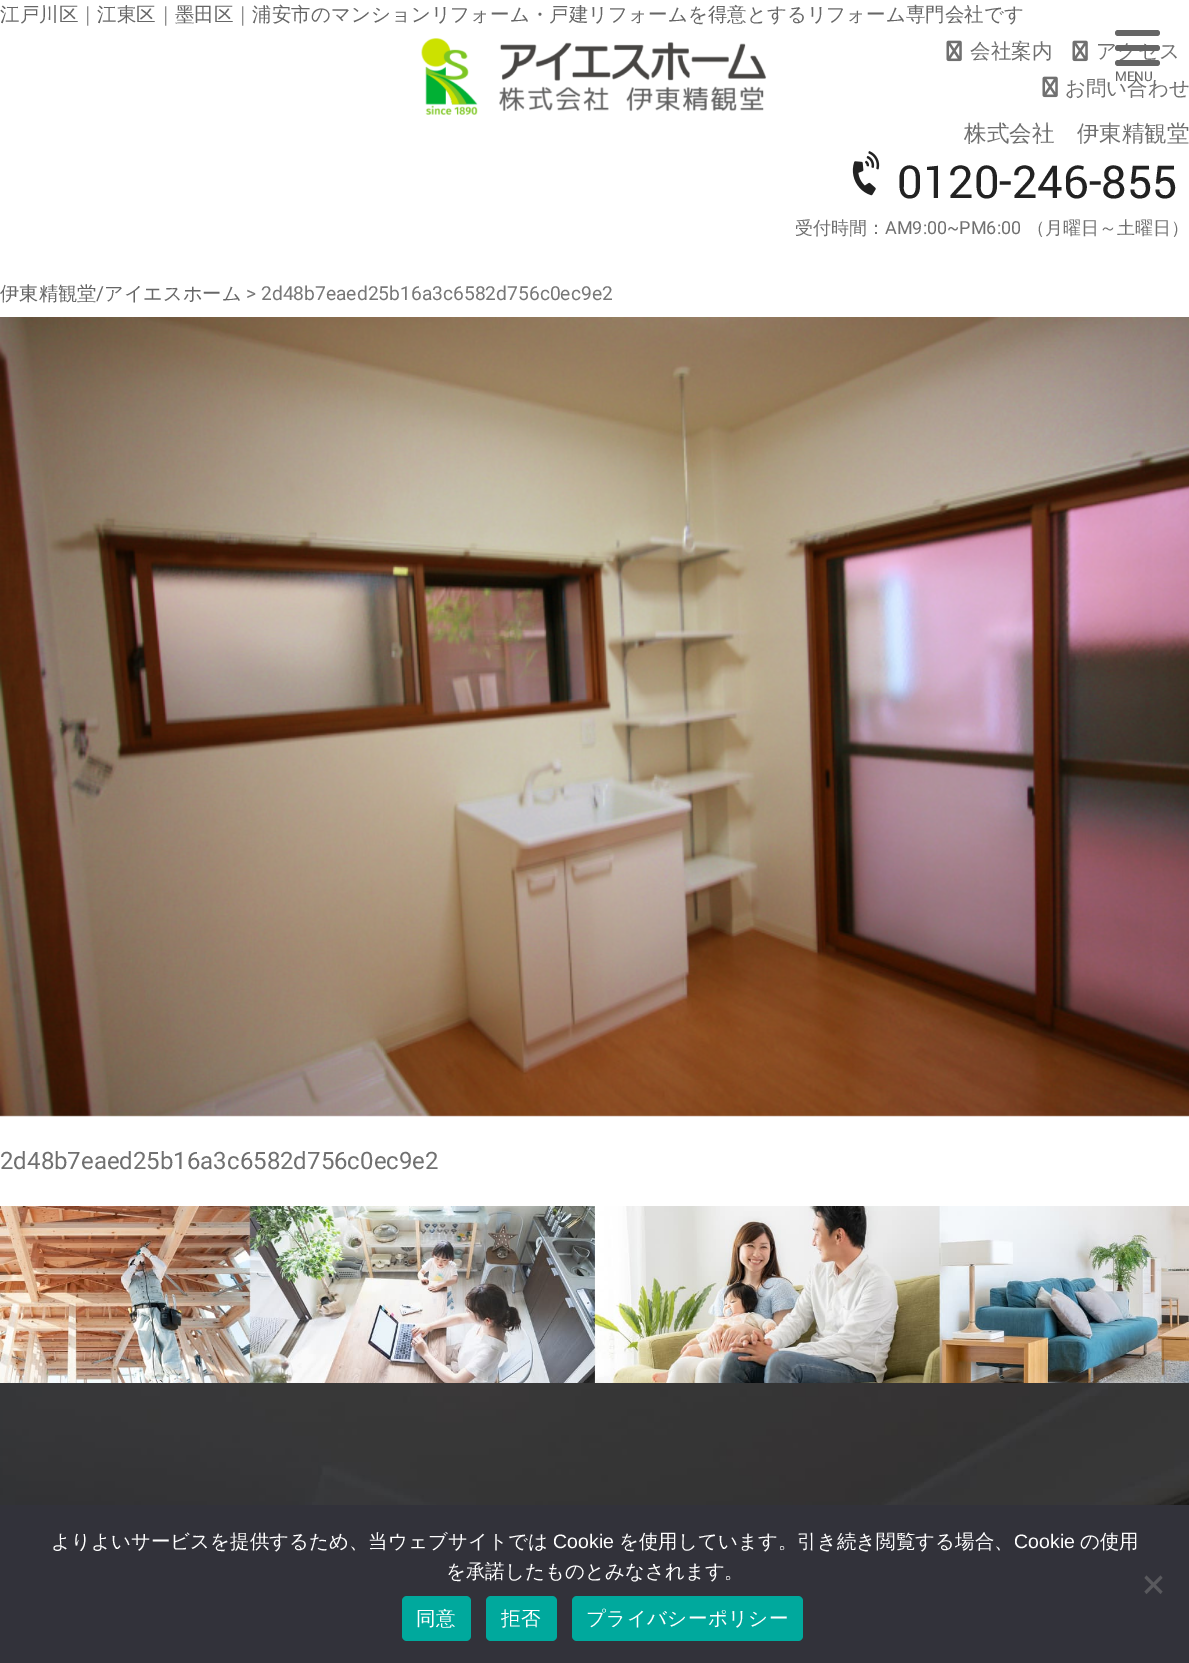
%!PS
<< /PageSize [1189 1663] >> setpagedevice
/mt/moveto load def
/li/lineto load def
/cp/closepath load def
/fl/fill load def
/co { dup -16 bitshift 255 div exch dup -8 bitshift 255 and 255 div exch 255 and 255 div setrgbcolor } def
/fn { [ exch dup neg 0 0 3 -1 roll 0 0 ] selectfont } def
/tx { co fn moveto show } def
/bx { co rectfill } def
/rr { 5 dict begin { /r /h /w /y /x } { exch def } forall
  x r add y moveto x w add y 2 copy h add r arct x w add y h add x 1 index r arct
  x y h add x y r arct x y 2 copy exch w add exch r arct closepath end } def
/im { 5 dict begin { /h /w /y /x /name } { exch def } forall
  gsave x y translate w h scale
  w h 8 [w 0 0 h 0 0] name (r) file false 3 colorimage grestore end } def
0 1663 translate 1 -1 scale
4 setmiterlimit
0 0 1189 1663 16#FFFFFF bx
(media/1.raw) 421 38 346 77 im
(media/2.raw) 946 40 16 22 im
(media/2.raw) 1072 40 16 22 im
(media/2.raw) 1042 76 16 22 im
(media/3.raw) 852 151 28 45 im
16#666666 co
1115 30 45 6 3 rr fl
(media/4.raw) 0 317 1189 800 im
(media/5.raw) 0 1206 1189 177 im
(media/6.raw) 0 1383 1189 122 im
0 1505 1189 158 16#32323A bx
16#59595D co
1160.5 1575.5 mt 1162.5 1578 li 1146.5 1594 li 1144.5 1591.5 li cp fl
1144.5 1578 mt 1146.5 1575.5 li 1162.5 1591.5 li 1160.5 1594 li cp fl
16#00A99D co
402 1596 69 45 5 rr fl
486 1596 71 45 5 rr fl
572 1596 231 45 5 rr fl
(江戸川区｜江東区｜墨田区｜浦安市のマンションリフォーム・戸建リフォームを得意とするリフォーム専門会社です) 0 21 /WenQuanYiZenHei-Medium 19.5 16#666666 tx
(会社案内) 970 58 /WenQuanYiZenHei-Medium 20.5 16#707070 tx
(アクセス) 1096 58 /WenQuanYiZenHei-Medium 20.5 16#707070 tx
(お問い合わせ) 1065 95 /WenQuanYiZenHei-Medium 20.5 16#707070 tx
(株式会社　伊東精観堂) 964 141 /WenQuanYiZenHei-Medium 22.5 16#707070 tx
(0120-246-855) 897 198 /Yantramanav-Regular 50.5 16#222222 tx
(受付時間：) 795 234 /WenQuanYiZenHei-Medium 18 16#707070 tx
(AM9:00~PM6:00) 885 234 /Roboto-Regular 18 16#707070 tx
(（月曜日～土曜日）) 1027 234 /WenQuanYiZenHei-Medium 18 16#707070 tx
16#666666 co
1115 45 45 6 3 rr fl
1115 60 45 6 3 rr fl
(MENU) 1115 81 /Roboto-Regular 13.5 16#666666 tx
(伊東精観堂) 0 300 /WenQuanYiZenHei-Medium 19.25 16#666666 tx
(/) 96 300 /Roboto-Regular 19.25 16#666666 tx
(アイエスホーム) 104 300 /WenQuanYiZenHei-Medium 19.25 16#666666 tx
(> 2d48b7eaed25b16a3c6582d756c0ec9e2) 246 300 /Roboto-Regular 19.25 16#777777 tx
(2d48b7eaed25b16a3c6582d756c0ec9e2) 0 1169 /Roboto-Regular 24 16#707070 tx
(よりよいサービスを提供するため、当ウェブサイトでは) 51 1548 /WenQuanYiZenHei-Medium 19.5 16#FFFFFF tx
(Cookie) 553 1548 /LiberationSans-Regular 19.5 16#FFFFFF tx
(を使用しています。引き続き閲覧する場合、) 619 1548 /WenQuanYiZenHei-Medium 19.5 16#FFFFFF tx
(Cookie) 1014 1548 /LiberationSans-Regular 19.5 16#FFFFFF tx
(の使用) 1080 1548 /WenQuanYiZenHei-Medium 19.5 16#FFFFFF tx
(を承諾したものとみなされます。) 446 1578 /WenQuanYiZenHei-Medium 19.5 16#FFFFFF tx
416 1625 mt .4 0 (同意) ashow
501 1625 mt .4 0 (拒否) ashow
586 1625 mt .4 0 (プライバシーポリシー) ashow
showpage
